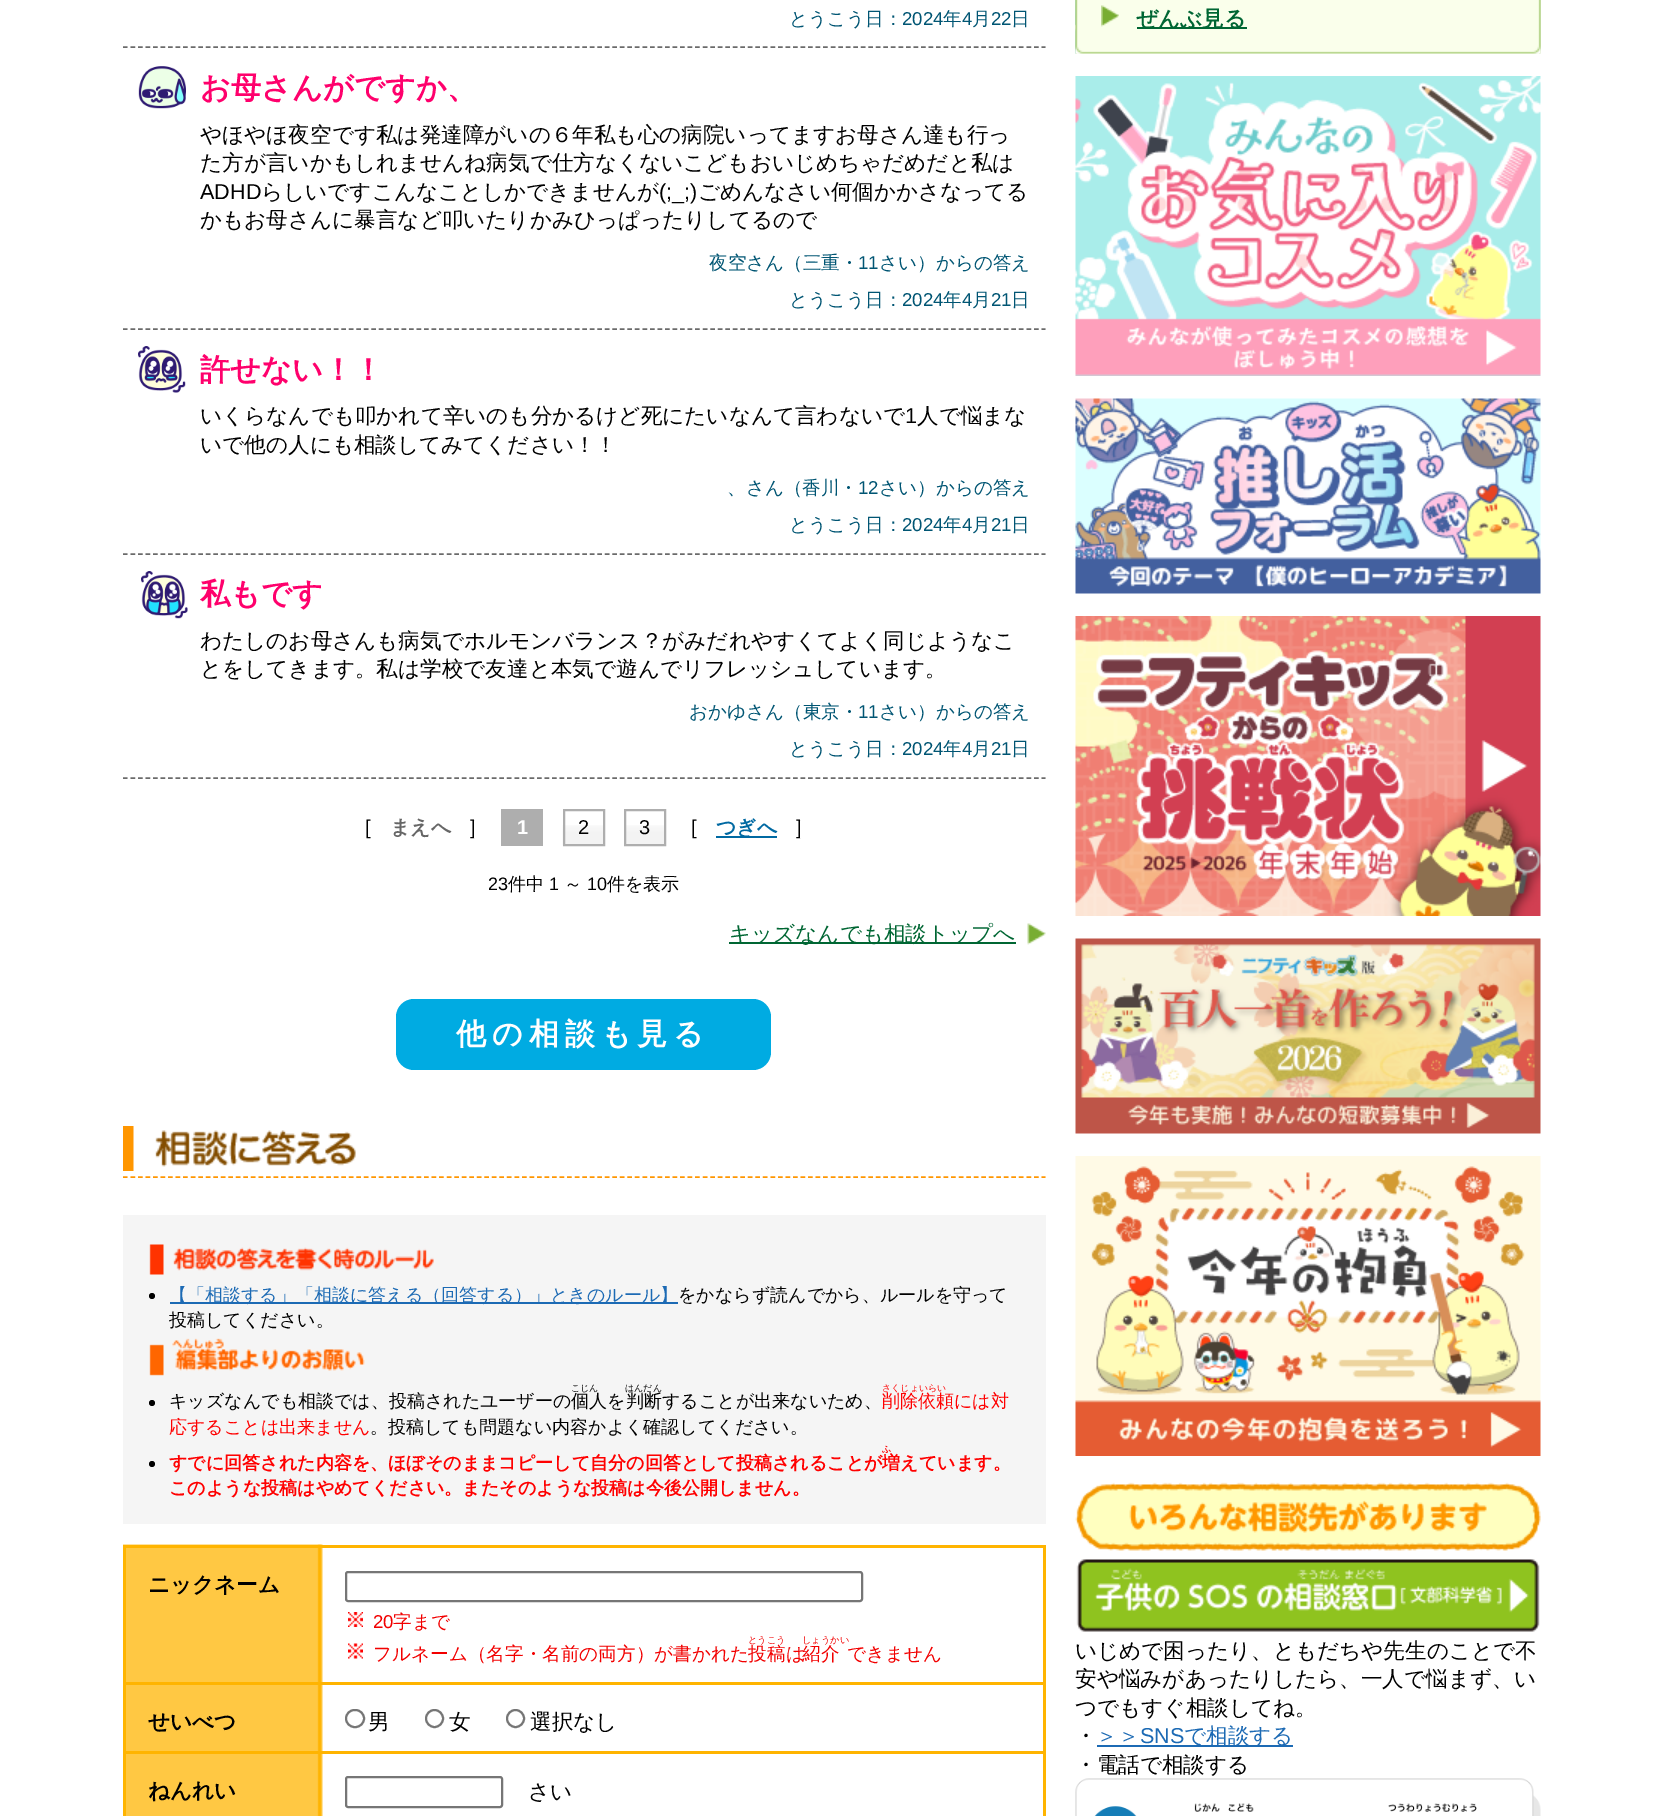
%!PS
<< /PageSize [1661 1816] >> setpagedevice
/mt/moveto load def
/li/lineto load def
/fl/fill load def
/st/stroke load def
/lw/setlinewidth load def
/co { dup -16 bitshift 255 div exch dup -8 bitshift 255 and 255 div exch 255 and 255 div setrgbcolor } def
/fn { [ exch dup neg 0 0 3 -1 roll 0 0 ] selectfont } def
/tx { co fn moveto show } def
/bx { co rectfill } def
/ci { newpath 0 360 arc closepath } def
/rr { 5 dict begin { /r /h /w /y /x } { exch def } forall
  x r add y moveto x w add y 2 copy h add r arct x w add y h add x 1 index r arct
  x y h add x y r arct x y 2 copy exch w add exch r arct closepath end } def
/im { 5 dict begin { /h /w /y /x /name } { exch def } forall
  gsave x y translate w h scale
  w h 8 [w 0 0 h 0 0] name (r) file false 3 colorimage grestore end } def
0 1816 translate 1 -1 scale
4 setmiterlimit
0 0 1661 1816 16#FFFFFF bx
16#6A6A6A co
1.5 lw
[4.5 3.03] 0 setdash
123 47 mt 1045.5 47 li st
123 329 mt 1045.5 329 li st
(media/1.raw) 138 66 48 43 im
123 554 mt 1045.5 554 li st
(media/2.raw) 138 346 48 47 im
123 778 mt 1045.5 778 li st
(media/3.raw) 141 571 47 48 im
501 809 42 37 16#AEAEAE bx
(media/4.raw) 562 825 41 21 im
2 lw
[] 0 setdash
564 810 40 35 rectstroke
(media/5.raw) 626 825 38 19 im
625 810 40 35 rectstroke
716 836 61 2 16#0069A2 bx
(media/6.raw) 1027 923 19 22 im
729 942 287 2 16#006633 bx
16#00ABE2 co
396 999 375 71 18 rr fl
16#FF9600 co
1.5 lw
[4.5 3.03] 0 setdash
123 1177 mt 1045.5 1177 li st
(media/7.raw) 123 1126 233 45 im
123 1215 923 309 16#F5F5F5 bx
(media/8.raw) 149 1244 285 31 im
16#000000 co
152 1296 3 ci fl
170 1302 508 2 16#1C6AB4 bx
(media/9.raw) 149 1338 216 38 im
16#000000 co
152 1403 3 ci fl
152 1464 3 ci fl
(media/10.raw) 123 1544 200 272 im
123 1545 923 3 16#FFB400 bx
1043 1545 3 271 16#FFB400 bx
123 1545 3 271 16#FFB400 bx
126 1682 917 3 16#FFB400 bx
16#767676 co
2 lw
[] 0 setdash
346 1572 516 29 2 rr st
(media/11.raw) 348 1612 15 15 im
(media/12.raw) 348 1643 15 16 im
126 1751 917 3 16#FFB400 bx
16#767676 co
346 1710 18 17 8.5 rr st
434.5 1718.5 8.5 ci st
515.5 1718.5 8.5 ci st
346 1777 156 30 2 rr st
(media/13.raw) 1075 0 466 54 im
(media/14.raw) 1075 0 466 54 im
(media/15.raw) 1101 5 18 22 im
1137 27 110 2 16#006633 bx
(media/16.raw) 1075 76 466 300 im
(media/17.raw) 1075 398 466 196 im
(media/18.raw) 1075 616 466 300 im
(media/19.raw) 1075 938 466 196 im
(media/20.raw) 1075 1156 466 300 im
(media/21.raw) 1075 1482 466 69 im
(media/22.raw) 1076 1559 464 73 im
1097 1745 196 2 16#1C6AB4 bx
(media/23.raw) 1075 1778 466 38 im
(とうこう日：) 789 25 /WenQuanYiZenHei-Medium 18.6 16#005573 tx
(2024) 902 25 /LiberationSans-Regular 18.6 16#005573 tx
(年) 943 25 /WenQuanYiZenHei-Medium 18.6 16#005573 tx
(4) 962 25 /LiberationSans-Regular 18.6 16#005573 tx
(月) 972 25 /WenQuanYiZenHei-Medium 18.6 16#005573 tx
(22) 991 25 /LiberationSans-Regular 18.6 16#005573 tx
(日) 1011 25 /WenQuanYiZenHei-Medium 18.6 16#005573 tx
(お母さんがですか、) 200 98 /WenQuanYiZenHei-Bold 30.25 16#FF006C tx
(やほやほ夜空です私は発達障がいの６年私も心の病院いってますお母さん達も行っ) 200 142 /WenQuanYiZenHei-Medium 21.6 16#000000 tx
(た方が言いかもしれませんね病気で仕方なくないこどもおいじめちゃだめだと私は) 200 170 /WenQuanYiZenHei-Medium 21.6 16#000000 tx
(ADHD) 200 199 /LiberationSans-Regular 21.6 16#000000 tx
(らしいですこんなことしかできませんが) 261 199 /WenQuanYiZenHei-Medium 21.6 16#000000 tx
(\(;_;\)) 659 199 /LiberationSans-Regular 21.6 16#000000 tx
(ごめんなさい何個かかさなってる) 698 199 /WenQuanYiZenHei-Medium 21.6 16#000000 tx
(かもお母さんに暴言など叩いたりかみひっぱったりしてるので) 200 227 /WenQuanYiZenHei-Medium 21.6 16#000000 tx
(夜空さん（三重・) 709 269 /WenQuanYiZenHei-Medium 18.6 16#005573 tx
(11) 858 269 /LiberationSans-Regular 18.6 16#005573 tx
(さい）からの答え) 879 269 /WenQuanYiZenHei-Medium 18.6 16#005573 tx
(とうこう日：) 789 306 /WenQuanYiZenHei-Medium 18.6 16#005573 tx
(2024) 902 306 /LiberationSans-Regular 18.6 16#005573 tx
(年) 943 306 /WenQuanYiZenHei-Medium 18.6 16#005573 tx
(4) 962 306 /LiberationSans-Regular 18.6 16#005573 tx
(月) 972 306 /WenQuanYiZenHei-Medium 18.6 16#005573 tx
(21) 991 306 /LiberationSans-Regular 18.6 16#005573 tx
(日) 1011 306 /WenQuanYiZenHei-Medium 18.6 16#005573 tx
(許せない！！) 200 380 /WenQuanYiZenHei-Bold 30.25 16#FF006C tx
(いくらなんでも叩かれて辛いのも分かるけど死にたいなんて言わないで) 200 423 /WenQuanYiZenHei-Medium 21.6 16#000000 tx
(1) 905 423 /LiberationSans-Regular 21.6 16#000000 tx
(人で悩まな) 917 423 /WenQuanYiZenHei-Medium 21.6 16#000000 tx
(いで他の人にも相談してみてください！！) 200 452 /WenQuanYiZenHei-Medium 21.6 16#000000 tx
(、さん（香川・) 727 494 /WenQuanYiZenHei-Medium 18.6 16#005573 tx
(12) 858 494 /LiberationSans-Regular 18.6 16#005573 tx
(さい）からの答え) 879 494 /WenQuanYiZenHei-Medium 18.6 16#005573 tx
(とうこう日：) 789 531 /WenQuanYiZenHei-Medium 18.6 16#005573 tx
(2024) 902 531 /LiberationSans-Regular 18.6 16#005573 tx
(年) 943 531 /WenQuanYiZenHei-Medium 18.6 16#005573 tx
(4) 962 531 /LiberationSans-Regular 18.6 16#005573 tx
(月) 972 531 /WenQuanYiZenHei-Medium 18.6 16#005573 tx
(21) 991 531 /LiberationSans-Regular 18.6 16#005573 tx
(日) 1011 531 /WenQuanYiZenHei-Medium 18.6 16#005573 tx
(私もです) 200 604 /WenQuanYiZenHei-Bold 30.25 16#FF006C tx
(わたしのお母さんも病気でホルモンバランス？がみだれやすくてよく同じようなこ) 200 648 /WenQuanYiZenHei-Medium 21.6 16#000000 tx
(とをしてきます。私は学校で友達と本気で遊んでリフレッシュしています。) 200 676 /WenQuanYiZenHei-Medium 21.6 16#000000 tx
(おかゆさん（東京・) 689 718 /WenQuanYiZenHei-Medium 18.6 16#005573 tx
(11) 858 718 /LiberationSans-Regular 18.6 16#005573 tx
(さい）からの答え) 879 718 /WenQuanYiZenHei-Medium 18.6 16#005573 tx
(とうこう日：) 789 755 /WenQuanYiZenHei-Medium 18.6 16#005573 tx
(2024) 902 755 /LiberationSans-Regular 18.6 16#005573 tx
(年) 943 755 /WenQuanYiZenHei-Medium 18.6 16#005573 tx
(4) 962 755 /LiberationSans-Regular 18.6 16#005573 tx
(月) 972 755 /WenQuanYiZenHei-Medium 18.6 16#005573 tx
(21) 991 755 /LiberationSans-Regular 18.6 16#005573 tx
(日) 1011 755 /WenQuanYiZenHei-Medium 18.6 16#005573 tx
([) 365 834 /LiberationSans-Regular 20 16#000000 tx
(まえへ) 390 834 /WenQuanYiZenHei-Bold 20 16#666666 tx
(]) 470 834 /LiberationSans-Regular 20 16#000000 tx
(1) 517 834 /LiberationSans-Bold 20 16#FFFFFF tx
(2) 578 834 /LiberationSans-Regular 20 16#000000 tx
(3) 639 834 /LiberationSans-Regular 20 16#000000 tx
([) 691 834 /LiberationSans-Regular 20 16#000000 tx
(つぎへ) 716 834 /WenQuanYiZenHei-Bold 20 16#0069A2 tx
(]) 796 834 /LiberationSans-Regular 20 16#000000 tx
(23) 488 890 /LiberationSans-Regular 18 16#000000 tx
(件中) 508 890 /WenQuanYiZenHei-Medium 18 16#000000 tx
(1) 549 890 /LiberationSans-Regular 18 16#000000 tx
(～) 564 890 /WenQuanYiZenHei-Medium 18 16#000000 tx
(10) 587 890 /LiberationSans-Regular 18 16#000000 tx
(件を表示) 607 890 /WenQuanYiZenHei-Medium 18 16#000000 tx
(キッズなんでも相談トップへ) 729 941 /WenQuanYiZenHei-Medium 21.6 16#006633 tx
/WenQuanYiZenHei-Bold 30 fn
16#FFFFFF co
456 1044 mt 6 0 (他の相談も見る) ashow
(【「相談する」「相談に答える（回答する）」ときのルール】) 169 1301 /WenQuanYiZenHei-Medium 18 16#1C6AB4 tx
(をかならず読んでから、ルールを守って) 678 1301 /WenQuanYiZenHei-Medium 18 16#000000 tx
(投稿してください。) 169 1326 /WenQuanYiZenHei-Medium 18 16#000000 tx
(さくじょいらい) 882 1391 /WenQuanYiZenHei-Medium 9 16#FF0000 tx
(削除依頼には対) 882 1407 /WenQuanYiZenHei-Medium 18 16#FF0000 tx
(応することは出来ません) 169 1433 /WenQuanYiZenHei-Medium 18 16#FF0000 tx
(こじん) 571 1391 /WenQuanYiZenHei-Medium 9 16#000000 tx
(はんだん) 625 1391 /WenQuanYiZenHei-Medium 9 16#000000 tx
(キッズなんでも相談では、投稿されたユーザーの個人を判断) 169 1407 /WenQuanYiZenHei-Medium 18 16#000000 tx
(することが出来ないため、) 662 1407 /WenQuanYiZenHei-Medium 18 16#000000 tx
(。投稿しても問題ない内容かよく確認してください。) 370 1433 /WenQuanYiZenHei-Medium 18 16#000000 tx
(ふ) 882 1452 /WenQuanYiZenHei-Bold 9 16#FF0000 tx
(すでに回答された内容を、ほぼそのままコピーして自分の回答として投稿されることが増えています。) 169 1469 /WenQuanYiZenHei-Bold 18 16#FF0000 tx
(このような投稿はやめてください。またそのような投稿は今後公開しません。) 169 1494 /WenQuanYiZenHei-Bold 18 16#FF0000 tx
(ニックネーム) 148 1592 /WenQuanYiZenHei-Bold 21.6 16#000000 tx
(20) 373 1628 /LiberationSans-Regular 18.6 16#F20000 tx
(字まで) 393 1628 /WenQuanYiZenHei-Medium 18.6 16#F20000 tx
(フルネーム（名字・名前の両方）が書かれた) 373 1660 /WenQuanYiZenHei-Medium 18.6 16#F20000 tx
(とうこう) 748 1643 /WenQuanYiZenHei-Medium 9.25 16#F20000 tx
(投稿) 748 1660 /WenQuanYiZenHei-Medium 18.6 16#F20000 tx
(は) 786 1660 /WenQuanYiZenHei-Medium 18.6 16#F20000 tx
(しょうかい) 802 1643 /WenQuanYiZenHei-Medium 9.25 16#F20000 tx
(紹介) 802 1660 /WenQuanYiZenHei-Medium 18.6 16#F20000 tx
(できません) 847 1660 /WenQuanYiZenHei-Medium 18.6 16#F20000 tx
(せいべつ) 148 1729 /WenQuanYiZenHei-Bold 21.6 16#000000 tx
(男) 368 1729 /WenQuanYiZenHei-Medium 21.6 16#000000 tx
(女) 449 1729 /WenQuanYiZenHei-Medium 21.6 16#000000 tx
(選択なし) 530 1729 /WenQuanYiZenHei-Medium 21.6 16#000000 tx
(ねんれい) 148 1798 /WenQuanYiZenHei-Bold 21.6 16#000000 tx
(さい) 528 1799 /WenQuanYiZenHei-Medium 21.6 16#000000 tx
(ぜんぶ見る) 1136 26 /WenQuanYiZenHei-Bold 21.6 16#006633 tx
(いじめで困ったり、ともだちや先生のことで不) 1075 1658 /WenQuanYiZenHei-Medium 21.6 16#000000 tx
(安や悩みがあったりしたら、一人で悩まず、い) 1075 1686 /WenQuanYiZenHei-Medium 21.6 16#000000 tx
(つでもすぐ相談してね。) 1075 1715 /WenQuanYiZenHei-Medium 21.6 16#000000 tx
(・) 1075 1743 /WenQuanYiZenHei-Medium 21.6 16#000000 tx
(＞＞) 1096 1743 /WenQuanYiZenHei-Medium 21.6 16#1C6AB4 tx
(SNS) 1140 1743 /LiberationSans-Regular 21.6 16#1C6AB4 tx
(で相談する) 1184 1743 /WenQuanYiZenHei-Medium 21.6 16#1C6AB4 tx
(・電話で相談する) 1075 1772 /WenQuanYiZenHei-Medium 21.6 16#000000 tx
showpage
